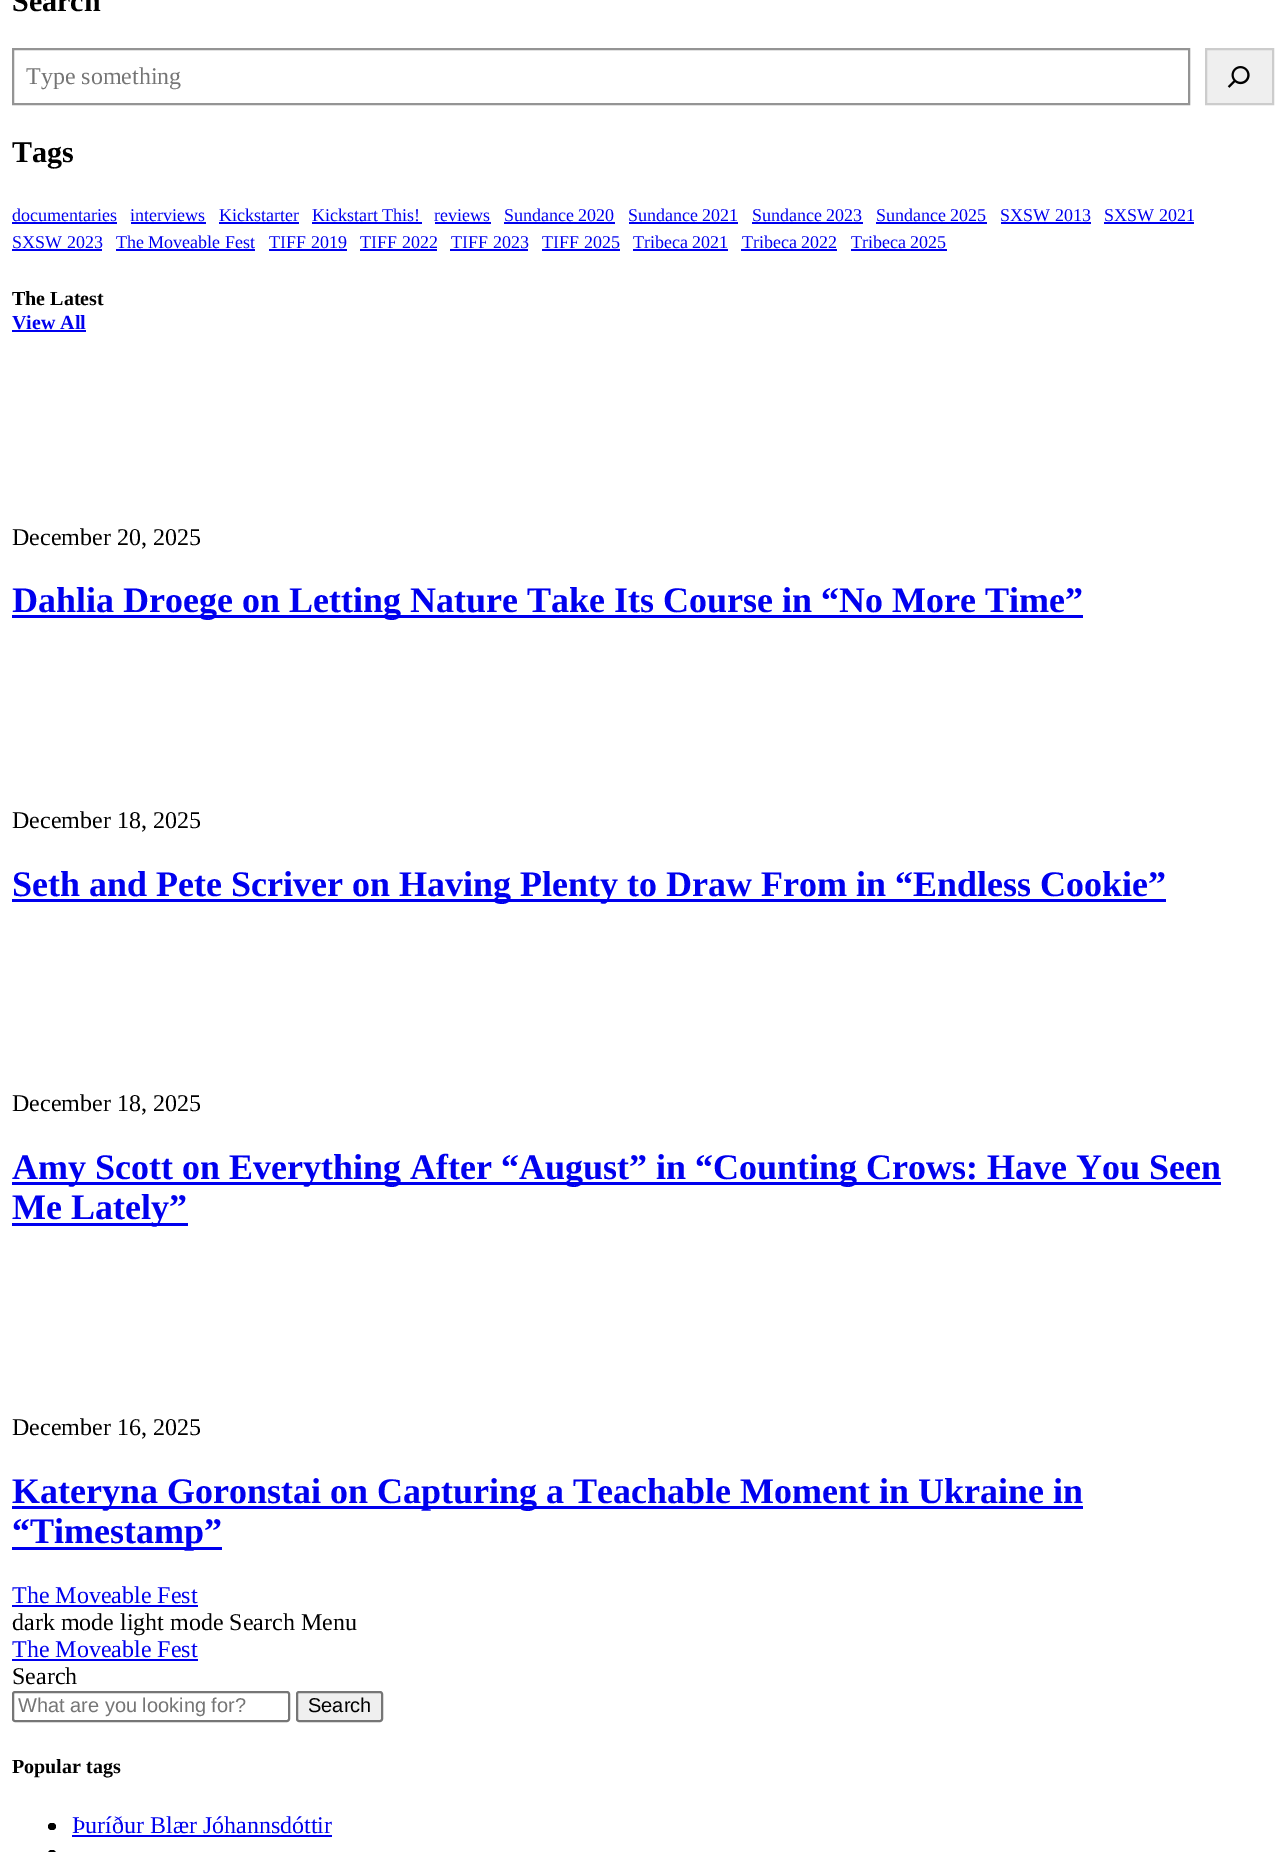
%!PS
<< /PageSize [1285 1852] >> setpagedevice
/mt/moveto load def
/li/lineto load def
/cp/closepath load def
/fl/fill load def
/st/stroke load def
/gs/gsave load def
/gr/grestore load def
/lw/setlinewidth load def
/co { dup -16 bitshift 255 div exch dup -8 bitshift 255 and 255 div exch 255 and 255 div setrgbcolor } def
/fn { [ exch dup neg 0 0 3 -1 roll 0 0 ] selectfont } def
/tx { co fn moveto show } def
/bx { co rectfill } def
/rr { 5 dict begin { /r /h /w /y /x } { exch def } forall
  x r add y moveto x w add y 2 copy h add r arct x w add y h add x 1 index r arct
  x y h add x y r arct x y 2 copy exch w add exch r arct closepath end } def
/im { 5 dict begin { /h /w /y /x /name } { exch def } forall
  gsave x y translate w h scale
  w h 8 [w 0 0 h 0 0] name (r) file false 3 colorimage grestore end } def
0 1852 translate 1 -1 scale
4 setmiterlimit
0 0 1285 1852 16#FFFFFF bx
16#949494 co
2 lw
13 49 1176 55 rectstroke
16#EFEFEF co
1206 49 mt 1273 49 li 1273 104 li 1206 104 li cp gs fl gr
16#CCCCCC co
st
(media/1.raw) 1227 66 23 22 im
12 222 105 2 16#0000EE bx
131 222 75 2 16#0000EE bx
219 222 80 2 16#0000EE bx
312 222 110 2 16#0000EE bx
435 222 56 2 16#0000EE bx
504 222 111 2 16#0000EE bx
629 222 109 2 16#0000EE bx
752 222 111 2 16#0000EE bx
876 222 111 2 16#0000EE bx
1001 222 90 2 16#0000EE bx
1104 222 90 2 16#0000EE bx
12 249 90 2 16#0000EE bx
116 249 139 2 16#0000EE bx
269 249 78 2 16#0000EE bx
360 249 77 2 16#0000EE bx
450 249 78 2 16#0000EE bx
542 249 78 2 16#0000EE bx
633 249 95 2 16#0000EE bx
741 249 96 2 16#0000EE bx
851 249 96 2 16#0000EE bx
12 330 74 2 16#0000EE bx
12 615 1071 3 16#0000EE bx
12 899 1154 3 16#0000EE bx
12 1182 1209 3 16#0000EE bx
12 1223 176 3 16#0000EE bx
12 1506 1071 3 16#0000EE bx
12 1547 210 3 16#0000EE bx
12 1605 186 2 16#0000EE bx
12 1659 186 2 16#0000EE bx
16#767676 co
13 1692 276 29 2 rr st
16#EFEFEF co
297 1692 85 29 2 rr gs fl gr
16#767676 co
st
16#000000 co
48 1823 8 7 3.5 rr fl
72 1835 260 2 16#0000EE bx
16#000000 co
48 1850 8 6 3.5 rr fl
(Search) 12 11 /LiberationSerif-Bold 30 16#000000 tx
gs
26 63 1128 27 rectclip
(Type something) 26 84 /LiberationSerif-Regular 24 16#757575 tx
gr
(Tags) 12 162 /LiberationSerif-Bold 30 16#000000 tx
(documentaries) 12 221 /LiberationSerif-Regular 18 16#0000EE tx
(interviews) 130 221 /LiberationSerif-Regular 18 16#0000EE tx
(Kickstarter) 219 221 /LiberationSerif-Regular 18 16#0000EE tx
(Kickstart This!) 312 221 /LiberationSerif-Regular 18 16#0000EE tx
(reviews) 434 221 /LiberationSerif-Regular 18 16#0000EE tx
(Sundance 2020) 504 221 /LiberationSerif-Regular 18 16#0000EE tx
(Sundance 2021) 628 221 /LiberationSerif-Regular 18 16#0000EE tx
(Sundance 2023) 752 221 /LiberationSerif-Regular 18 16#0000EE tx
(Sundance 2025) 876 221 /LiberationSerif-Regular 18 16#0000EE tx
(SXSW 2013) 1000 221 /LiberationSerif-Regular 18 16#0000EE tx
(SXSW 2021) 1104 221 /LiberationSerif-Regular 18 16#0000EE tx
(SXSW 2023) 12 248 /LiberationSerif-Regular 18 16#0000EE tx
(The Moveable Fest) 116 248 /LiberationSerif-Regular 18 16#0000EE tx
(TIFF 2019) 269 248 /LiberationSerif-Regular 18 16#0000EE tx
(TIFF 2022) 360 248 /LiberationSerif-Regular 18 16#0000EE tx
(TIFF 2023) 451 248 /LiberationSerif-Regular 18 16#0000EE tx
(TIFF 2025) 542 248 /LiberationSerif-Regular 18 16#0000EE tx
(Tribeca 2021) 633 248 /LiberationSerif-Regular 18 16#0000EE tx
(Tribeca 2022) 742 248 /LiberationSerif-Regular 18 16#0000EE tx
(Tribeca 2025) 851 248 /LiberationSerif-Regular 18 16#0000EE tx
(The Latest) 12 305 /LiberationSerif-Bold 20 16#000000 tx
(View All) 12 329 /LiberationSerif-Bold 20 16#0000EE tx
(December 20, 2025) 12 545 /LiberationSerif-Regular 24 16#000000 tx
(Dahlia Droege on Letting Nature Take Its Course in “No More Time”) 12 612 /LiberationSerif-Bold 36 16#0000EE tx
(December 18, 2025) 12 828 /LiberationSerif-Regular 24 16#000000 tx
(Seth and Pete Scriver on Having Plenty to Draw From in “Endless Cookie”) 12 896 /LiberationSerif-Bold 36 16#0000EE tx
(December 18, 2025) 12 1111 /LiberationSerif-Regular 24 16#000000 tx
(Amy Scott on Everything After “August” in “Counting Crows: Have You Seen) 12 1179 /LiberationSerif-Bold 36 16#0000EE tx
(Me Lately”) 12 1219 /LiberationSerif-Bold 36 16#0000EE tx
(December 16, 2025) 12 1435 /LiberationSerif-Regular 24 16#000000 tx
(Kateryna Goronstai on Capturing a Teachable Moment in Ukraine in) 12 1503 /LiberationSerif-Bold 36 16#0000EE tx
(“Timestamp”) 12 1543 /LiberationSerif-Bold 36 16#0000EE tx
(The Moveable Fest) 12 1603 /LiberationSerif-Regular 24 16#0000EE tx
(dark mode light mode Search Menu) 12 1630 /LiberationSerif-Regular 24 16#000000 tx
(The Moveable Fest) 12 1657 /LiberationSerif-Regular 24 16#0000EE tx
(Search) 12 1684 /LiberationSerif-Regular 24 16#000000 tx
(What are you looking for?) 18 1712 /LiberationSans-Regular 20 16#757575 tx
(Search) 308 1712 /LiberationSans-Regular 20 16#000000 tx
(Popular tags) 12 1773 /LiberationSerif-Bold 20 16#000000 tx
(Þuríður Blær Jóhannsdóttir) 72 1833 /LiberationSerif-Regular 24 16#0000EE tx
showpage
